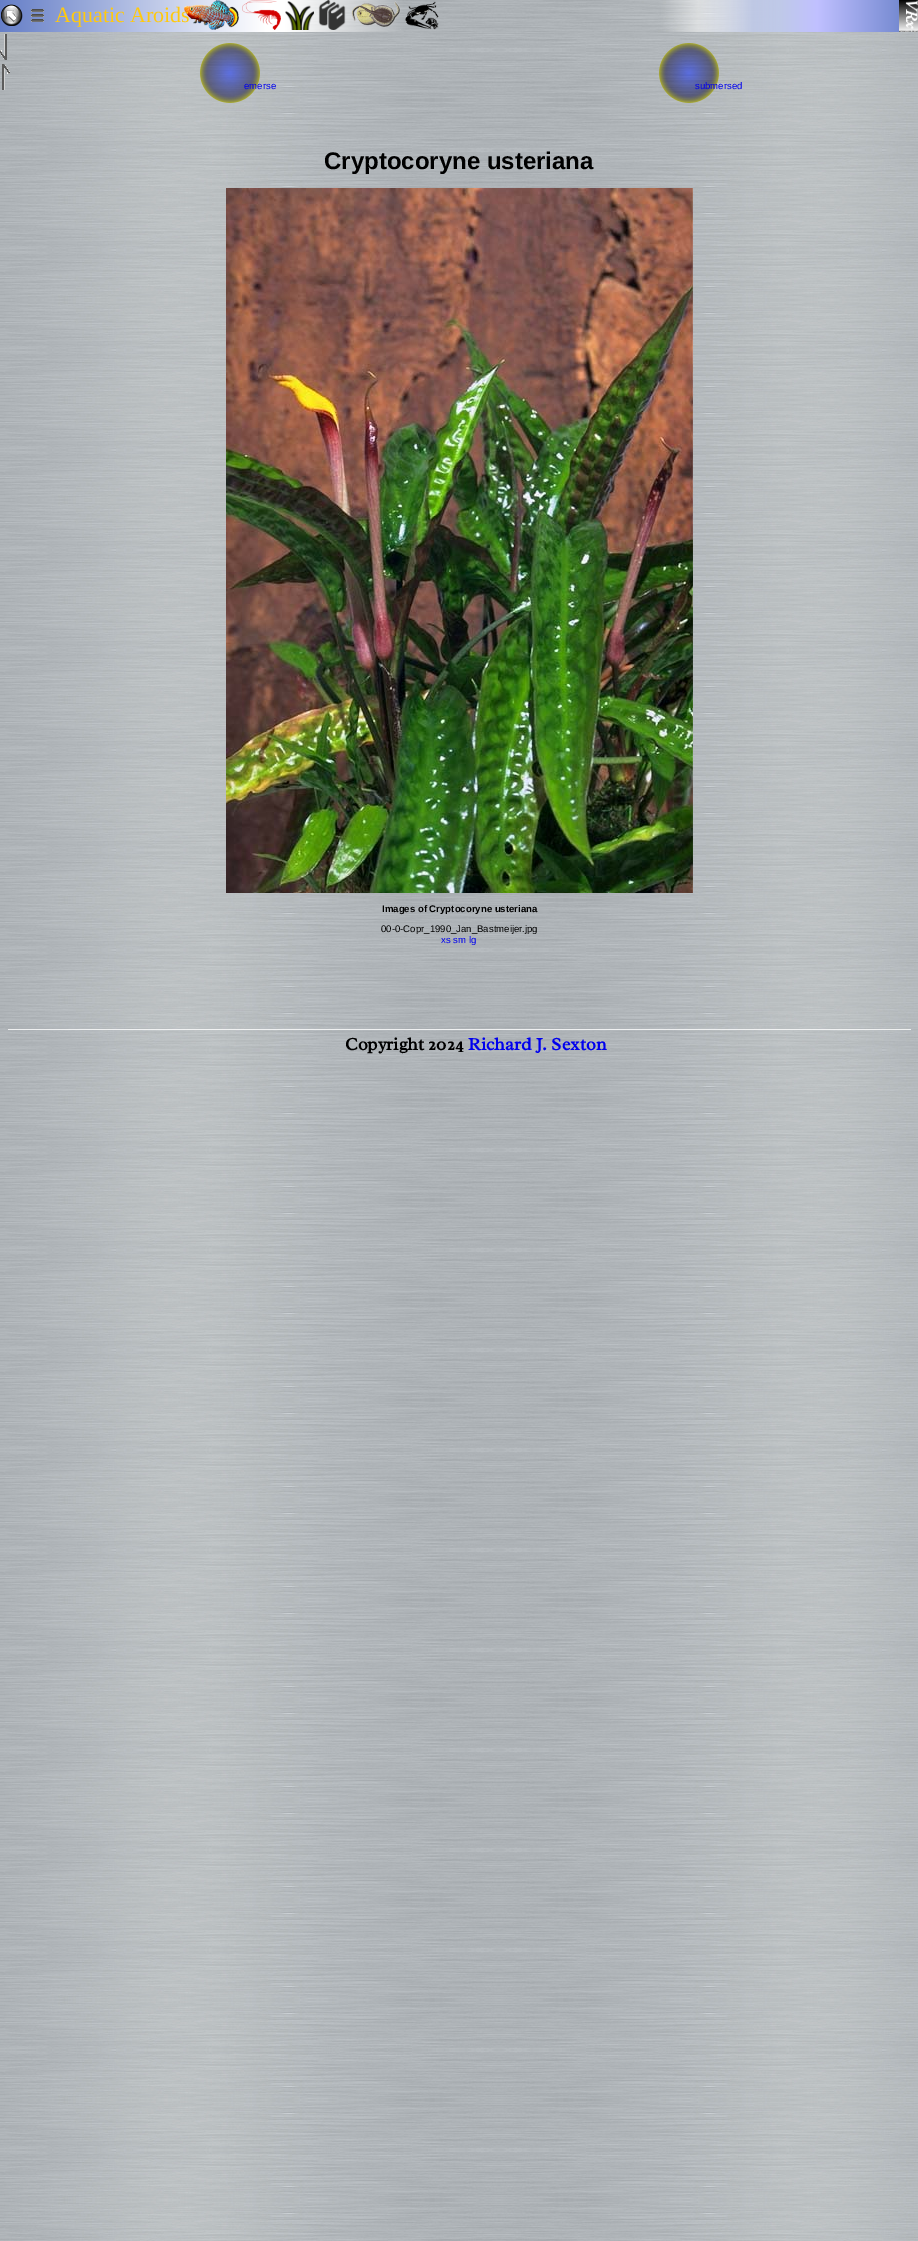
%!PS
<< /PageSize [918 2241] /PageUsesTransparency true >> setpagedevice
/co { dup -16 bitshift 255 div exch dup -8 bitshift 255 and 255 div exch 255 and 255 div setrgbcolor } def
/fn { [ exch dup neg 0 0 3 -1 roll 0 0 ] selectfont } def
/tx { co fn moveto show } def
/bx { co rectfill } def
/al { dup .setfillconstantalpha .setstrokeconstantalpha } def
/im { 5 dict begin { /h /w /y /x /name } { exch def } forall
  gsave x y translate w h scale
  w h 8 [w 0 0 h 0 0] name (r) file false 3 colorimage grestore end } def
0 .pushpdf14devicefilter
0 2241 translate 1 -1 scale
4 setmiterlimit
0 0 918 2241 16#FFFFFF bx
(media/1.raw) 0 0 918 2241 im
(media/2.raw) 1 4 22 22 im
(media/3.raw) 184 0 55 30 im
(media/4.raw) 242 0 39 30 im
(media/5.raw) 285 1 29 29 im
(media/6.raw) 318 0 28 30 im
(media/7.raw) 351 1 50 29 im
(media/8.raw) 405 1 34 29 im
(media/9.raw) 899 0 19 32 im
(media/10.raw) 31 9 13 13 im
0.8 al
8 1029 903 1 16#FFFFFF bx
1 al
(media/11.raw) 226 188 467 705 im
(media/12.raw) 0 34 7 26 im
(media/13.raw) 2 64 8 26 im
(Aquatic Aroids) 55 22 /LiberationSerif-Regular 22 16#FFC90E tx
(Copyright 2024) 345 1050 /Radley-Bold 18 16#000000 tx
(Richard J. Sexton) 468 1050 /Radley-Bold 18 16#0000EE tx
(Cryptocoryne usteriana) 324 169 /LiberationSans-Bold 24 16#000000 tx
(Images of Cryptocoryne usteriana) 382 912 /LiberationSans-Bold 9.6 16#000000 tx
(00-0-Copr_1990_Jan_Bastmeijer.jpg) 381 932 /LiberationSans-Regular 9.6 16#000000 tx
(xs sm lg) 441 943 /LiberationSans-Regular 9.6 16#0000EE tx
(emerse) 244 89 /LiberationSans-Regular 9.6 16#0000EE tx
(submersed) 695 89 /LiberationSans-Regular 9.6 16#0000EE tx
.poppdf14devicefilter showpage
